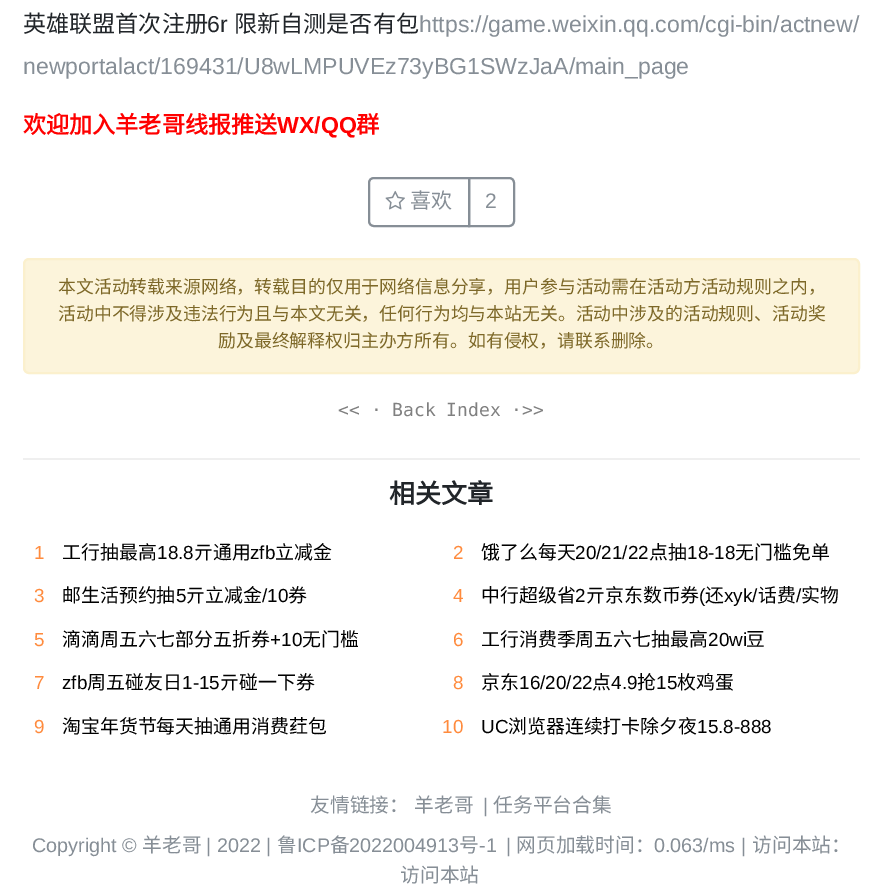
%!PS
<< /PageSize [881 887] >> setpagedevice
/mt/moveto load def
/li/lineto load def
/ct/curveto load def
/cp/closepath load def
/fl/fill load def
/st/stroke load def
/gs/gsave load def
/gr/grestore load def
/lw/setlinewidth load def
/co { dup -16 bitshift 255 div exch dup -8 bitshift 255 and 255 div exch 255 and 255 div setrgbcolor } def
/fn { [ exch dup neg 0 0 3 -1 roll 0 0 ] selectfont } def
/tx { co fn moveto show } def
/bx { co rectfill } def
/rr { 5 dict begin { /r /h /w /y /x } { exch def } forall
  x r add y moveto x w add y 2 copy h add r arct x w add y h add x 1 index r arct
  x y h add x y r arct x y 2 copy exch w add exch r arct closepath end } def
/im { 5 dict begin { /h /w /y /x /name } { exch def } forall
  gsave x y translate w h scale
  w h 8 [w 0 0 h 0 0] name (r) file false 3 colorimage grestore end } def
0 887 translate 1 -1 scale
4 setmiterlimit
0 0 881 887 16#FFFFFF bx
16#868E96 co
2 lw
374 178 mt 469 178 li 469 226 li 374 226 li 371 226 369 224 369 221 ct 369 183 li 369 180 371 178 374 178 ct cp st
(media/1.raw) 385 190 20 20 im
469 178 mt 509 178 li 512 178 514 180 514 183 ct 514 221 li 514 224 512 226 509 226 ct 469 226 li cp st
16#FCF4DB co
24 259 835 114 5 rr gs fl gr
16#FBF0CD co
st
23 458 837 2 16#EFEFEF bx
(英雄联盟首次注册) 23 32 /NotoSansCJKSC-Regular 23.1 16#212529 tx
(6r) 207 32 /LiberationSans-Regular 23.1 16#212529 tx
(限新自测是否有包) 234 32 /NotoSansCJKSC-Regular 23.1 16#212529 tx
(https://game.weixin.qq.com/cgi-bin/actnew/) 419 32 /LiberationSans-Regular 23.1 16#868E96 tx
(newportalact/169431/U8wLMPUVEz73yBG1SWzJaA/main_page) 23 74 /LiberationSans-Regular 23.1 16#868E96 tx
(欢迎加入羊老哥线报推送) 23 133 /NotoSansCJKSC-Bold 23.1 16#FF0000 tx
(WX/QQ) 277 133 /LiberationSans-Bold 23.1 16#FF0000 tx
(群) 356 133 /NotoSansCJKSC-Bold 23.1 16#FF0000 tx
(喜欢) 410 208 /NotoSansCJKSC-Regular 21 16#868E96 tx
(2) 485 208 /LiberationSans-Regular 21 16#868E96 tx
(本文活动转载来源网络，转载目的仅用于网络信息分享，用户参与活动需在活动方活动规则之内，) 58 293 /NotoSansCJKSC-Regular 17.85 16#7D6828 tx
(活动中不得涉及违法行为且与本文无关，任何行为均与本站无关。活动中涉及的活动规则、活动奖) 58 320 /NotoSansCJKSC-Regular 17.85 16#7D6828 tx
(励及最终解释权归主办方所有。如有侵权，请联系删除。) 218 347 /NotoSansCJKSC-Regular 17.85 16#7D6828 tx
(<< · Back Index ·>>) 338 416 /DejaVuSansMono-Regular 18 16#808080 tx
(相关文章) 389 503 /NotoSansCJKSC-Bold 26 16#212529 tx
(1) 34 559 /LiberationSans-Regular 18.9 16#FF8B3D tx
(工行抽最高) 62 559 /NotoSansCJKSC-Regular 18.9 16#000000 tx
(18.8) 157 559 /LiberationSans-Regular 18.9 16#000000 tx
(亓通用) 194 559 /NotoSansCJKSC-Regular 18.9 16#000000 tx
(zfb) 250 559 /LiberationSans-Regular 18.9 16#000000 tx
(立减金) 275 559 /NotoSansCJKSC-Regular 18.9 16#000000 tx
(2) 453 559 /LiberationSans-Regular 18.9 16#FF8B3D tx
(饿了么每天) 481 559 /NotoSansCJKSC-Regular 18.9 16#000000 tx
(20/21/22) 575 559 /LiberationSans-Regular 18.9 16#000000 tx
(点抽) 649 559 /NotoSansCJKSC-Regular 18.9 16#000000 tx
(18-18) 687 559 /LiberationSans-Regular 18.9 16#000000 tx
(无门槛免单) 735 559 /NotoSansCJKSC-Regular 18.9 16#000000 tx
(3) 34 602 /LiberationSans-Regular 18.9 16#FF8B3D tx
(邮生活预约抽) 62 602 /NotoSansCJKSC-Regular 18.9 16#000000 tx
(5) 176 602 /LiberationSans-Regular 18.9 16#000000 tx
(亓立减金) 186 602 /NotoSansCJKSC-Regular 18.9 16#000000 tx
(/10) 262 602 /LiberationSans-Regular 18.9 16#000000 tx
(券) 288 602 /NotoSansCJKSC-Regular 18.9 16#000000 tx
(4) 453 602 /LiberationSans-Regular 18.9 16#FF8B3D tx
(中行超级省) 481 602 /NotoSansCJKSC-Regular 18.9 16#000000 tx
(2) 575 602 /LiberationSans-Regular 18.9 16#000000 tx
(亓京东数币券) 586 602 /NotoSansCJKSC-Regular 18.9 16#000000 tx
(\() 699 602 /LiberationSans-Regular 18.9 16#000000 tx
(还) 705 602 /NotoSansCJKSC-Regular 18.9 16#000000 tx
(xyk/) 724 602 /LiberationSans-Regular 18.9 16#000000 tx
(话费) 758 602 /NotoSansCJKSC-Regular 18.9 16#000000 tx
(/) 796 602 /LiberationSans-Regular 18.9 16#000000 tx
(实物) 801 602 /NotoSansCJKSC-Regular 18.9 16#000000 tx
(5) 34 646 /LiberationSans-Regular 18.9 16#FF8B3D tx
(滴滴周五六七部分五折券) 62 646 /NotoSansCJKSC-Regular 18.9 16#000000 tx
(+10) 270 646 /LiberationSans-Regular 18.9 16#000000 tx
(无门槛) 302 646 /NotoSansCJKSC-Regular 18.9 16#000000 tx
(6) 453 646 /LiberationSans-Regular 18.9 16#FF8B3D tx
(工行消费季周五六七抽最高) 481 646 /NotoSansCJKSC-Regular 18.9 16#000000 tx
(20wi) 708 646 /LiberationSans-Regular 18.9 16#000000 tx
(豆) 746 646 /NotoSansCJKSC-Regular 18.9 16#000000 tx
(7) 34 689 /LiberationSans-Regular 18.9 16#FF8B3D tx
(zfb) 62 689 /LiberationSans-Regular 18.9 16#000000 tx
(周五碰友日) 87 689 /NotoSansCJKSC-Regular 18.9 16#000000 tx
(1-15) 182 689 /LiberationSans-Regular 18.9 16#000000 tx
(亓碰一下券) 220 689 /NotoSansCJKSC-Regular 18.9 16#000000 tx
(8) 453 689 /LiberationSans-Regular 18.9 16#FF8B3D tx
(京东) 481 689 /NotoSansCJKSC-Regular 18.9 16#000000 tx
(16/20/22) 519 689 /LiberationSans-Regular 18.9 16#000000 tx
(点) 592 689 /NotoSansCJKSC-Regular 18.9 16#000000 tx
(4.9) 611 689 /LiberationSans-Regular 18.9 16#000000 tx
(抢) 637 689 /NotoSansCJKSC-Regular 18.9 16#000000 tx
(15) 656 689 /LiberationSans-Regular 18.9 16#000000 tx
(枚鸡蛋) 677 689 /NotoSansCJKSC-Regular 18.9 16#000000 tx
(9) 34 733 /LiberationSans-Regular 18.9 16#FF8B3D tx
(淘宝年货节每天抽通用消费荭包) 62 733 /NotoSansCJKSC-Regular 18.9 16#000000 tx
(10) 442 733 /LiberationSans-Regular 18.9 16#FF8B3D tx
(UC) 481 733 /LiberationSans-Regular 18.9 16#000000 tx
(浏览器连续打卡除夕夜) 508 733 /NotoSansCJKSC-Regular 18.9 16#000000 tx
(15.8-888) 697 733 /LiberationSans-Regular 18.9 16#000000 tx
(友情链接：) 310 812 /NotoSansCJKSC-Regular 19.75 16#868E96 tx
(羊老哥) 414 812 /NotoSansCJKSC-Regular 19.75 16#868E96 tx
(|) 483 812 /LiberationSans-Regular 19.75 16#868E96 tx
(任务平台合集) 493 812 /NotoSansCJKSC-Regular 19.75 16#868E96 tx
(Copyright ©) 32 852 /LiberationSans-Regular 19.75 16#868E96 tx
(羊老哥) 142 852 /NotoSansCJKSC-Regular 19.75 16#868E96 tx
(| 2022 |) 206 852 /LiberationSans-Regular 19.75 16#868E96 tx
(鲁) 277 852 /NotoSansCJKSC-Regular 19.75 16#868E96 tx
(ICP) 297 852 /LiberationSans-Regular 19.75 16#868E96 tx
(备) 330 852 /NotoSansCJKSC-Regular 19.75 16#868E96 tx
(2022004913) 349 852 /LiberationSans-Regular 19.75 16#868E96 tx
(号) 459 852 /NotoSansCJKSC-Regular 19.75 16#868E96 tx
(-1) 479 852 /LiberationSans-Regular 19.75 16#868E96 tx
(|) 506 852 /LiberationSans-Regular 19.75 16#868E96 tx
(网页加载时间：) 516 852 /NotoSansCJKSC-Regular 19.75 16#868E96 tx
(0.063/ms |) 654 852 /LiberationSans-Regular 19.75 16#868E96 tx
(访问本站：) 752 852 /NotoSansCJKSC-Regular 19.75 16#868E96 tx
(访问本站) 400 882 /NotoSansCJKSC-Regular 19.75 16#868E96 tx
showpage
